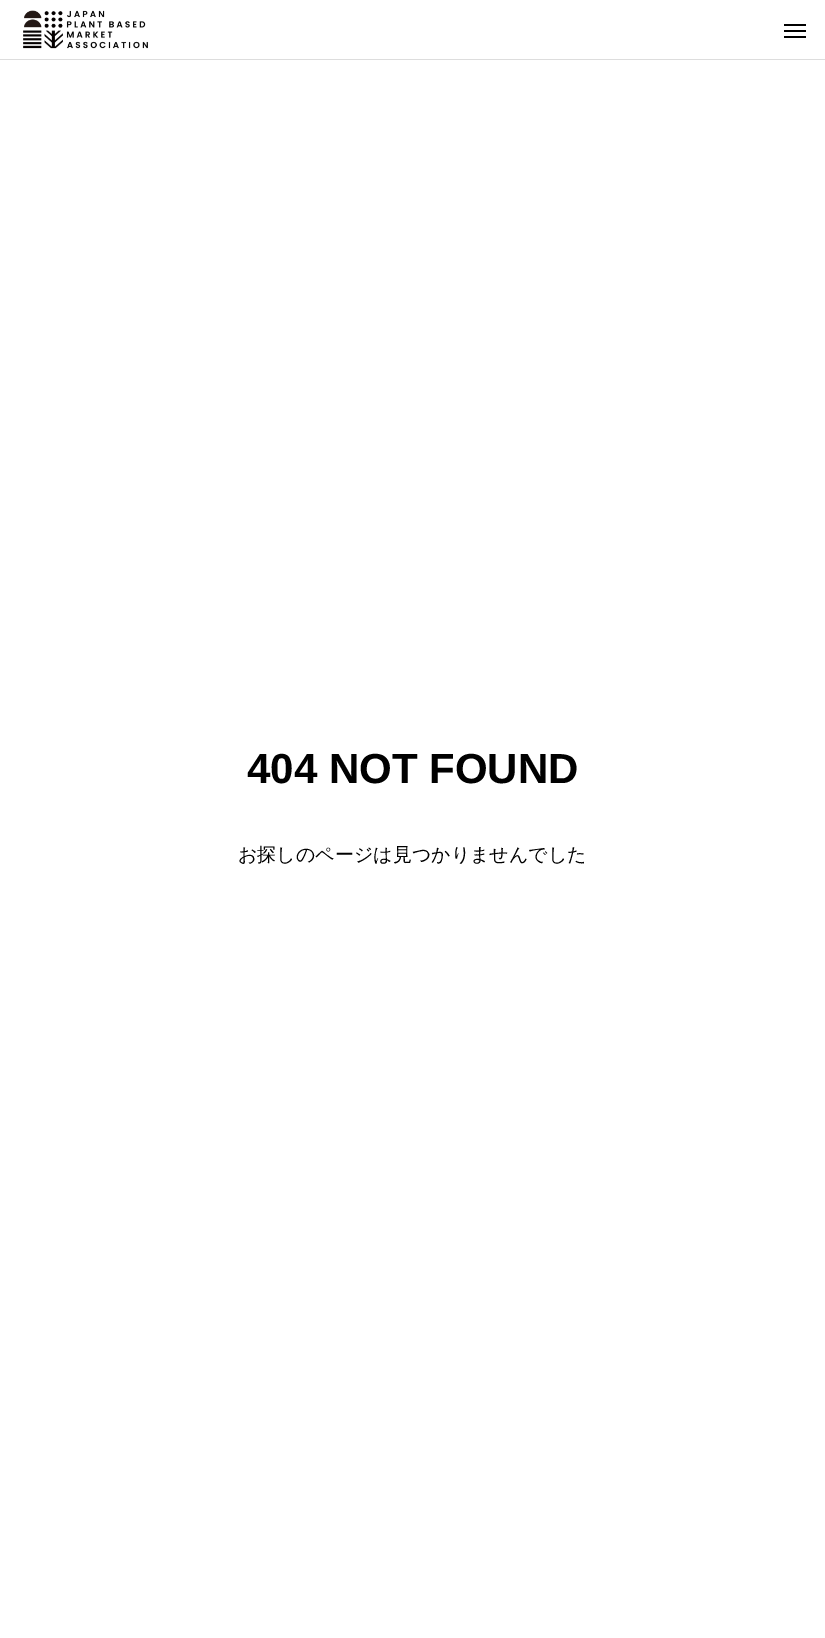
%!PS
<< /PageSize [825 1638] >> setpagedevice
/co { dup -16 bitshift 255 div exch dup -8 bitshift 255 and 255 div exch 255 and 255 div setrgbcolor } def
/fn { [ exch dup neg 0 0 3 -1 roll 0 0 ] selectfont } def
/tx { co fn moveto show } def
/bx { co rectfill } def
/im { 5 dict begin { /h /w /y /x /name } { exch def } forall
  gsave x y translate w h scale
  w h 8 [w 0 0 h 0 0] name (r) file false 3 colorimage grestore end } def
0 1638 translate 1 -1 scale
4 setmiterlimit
0 0 825 1638 16#FFFFFF bx
0 59 825 1 16#DDDDDD bx
(media/1.raw) 23 10 125 39 im
784 24 22 2 16#000000 bx
784 30 22 2 16#000000 bx
784 36 22 2 16#000000 bx
(404 NOT FOUND) 247 783 /LiberationSans-Bold 42 16#000000 tx
(お探しのページは見つかりませんでした) 238 861 /WenQuanYiZenHei-Medium 19 16#000000 tx
showpage
